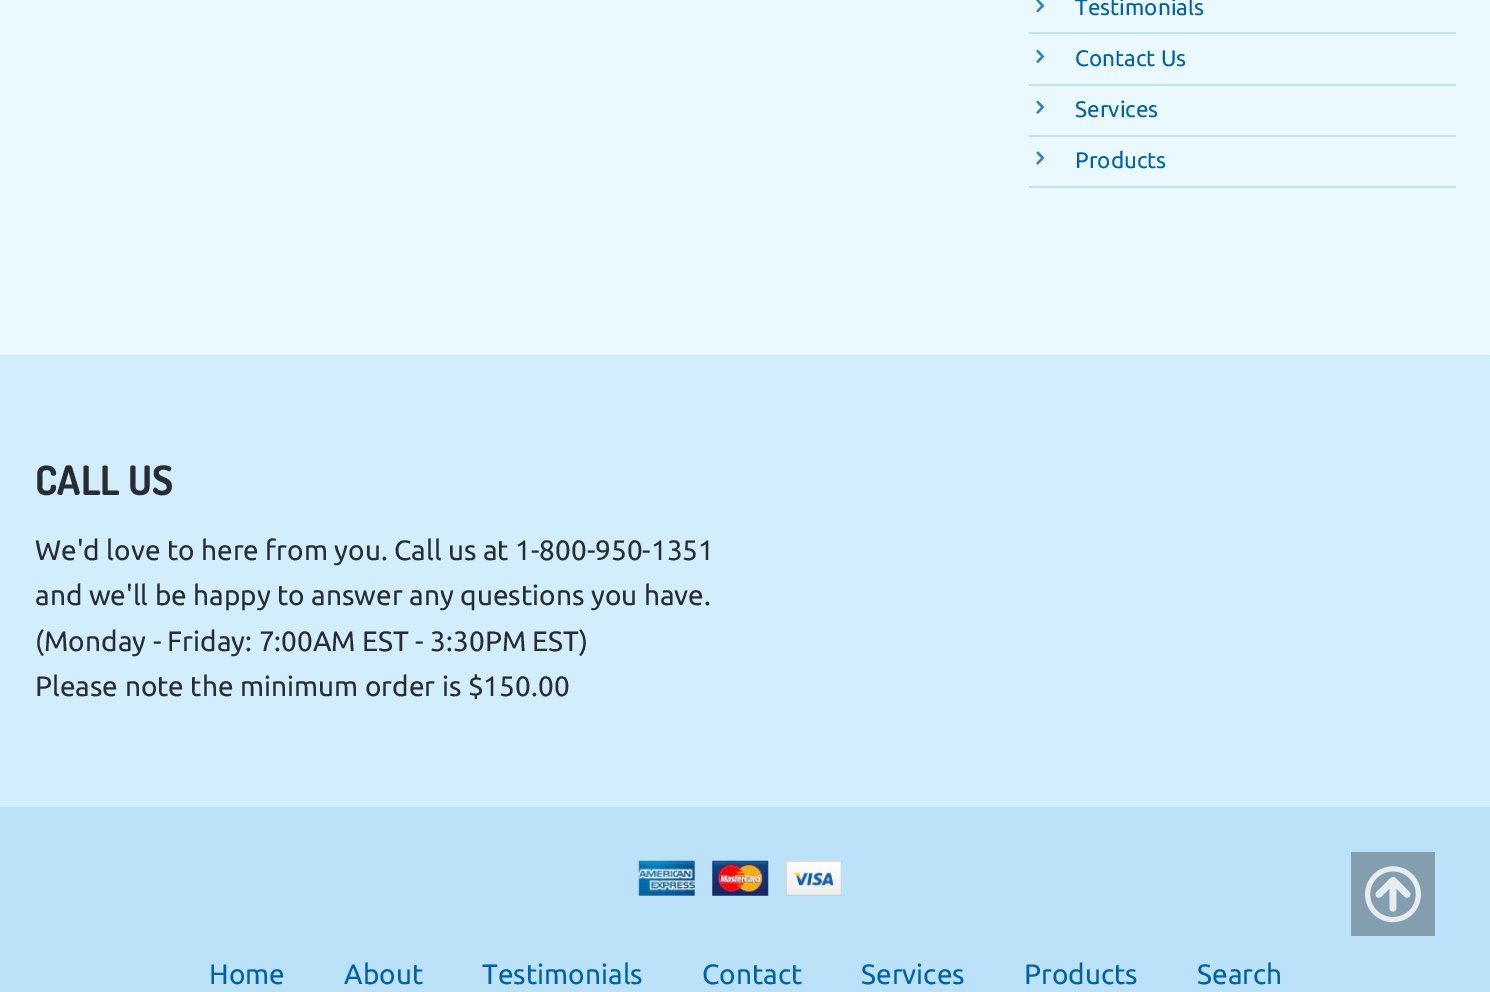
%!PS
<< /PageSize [1490 992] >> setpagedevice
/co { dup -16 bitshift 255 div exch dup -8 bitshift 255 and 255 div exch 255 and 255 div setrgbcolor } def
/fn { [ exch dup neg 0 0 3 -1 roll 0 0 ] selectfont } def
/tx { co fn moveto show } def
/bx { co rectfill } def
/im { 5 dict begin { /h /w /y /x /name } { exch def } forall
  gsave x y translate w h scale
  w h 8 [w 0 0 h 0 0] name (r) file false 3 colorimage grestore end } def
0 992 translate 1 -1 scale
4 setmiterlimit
0 0 1490 992 16#EAF8FF bx
1029 32 427 2 16#BBE2F9 bx
(media/1.raw) 1036 0 8 13 im
1029 84 427 2 16#BBE2F9 bx
(media/2.raw) 1036 50 8 13 im
1029 135 427 2 16#BBE2F9 bx
(media/3.raw) 1036 100 8 14 im
1029 186 427 2 16#BBE2F9 bx
(media/4.raw) 1036 151 8 14 im
0 355 1490 452 16#D2EDFC bx
0 807 1490 185 16#BBE2F9 bx
(media/5.raw) 638 860 57 36 im
(media/6.raw) 712 860 57 36 im
(media/7.raw) 785 860 57 36 im
1351 852 84 84 16#839EAE bx
(media/8.raw) 1365 866 56 57 im
(Testimonials) 1075 15 /Ubuntu-Regular 22.5 16#0062A6 tx
(Contact Us) 1075 66 /Ubuntu-Regular 22.5 16#0062A6 tx
(Services) 1075 117 /Ubuntu-Regular 22.5 16#0062A6 tx
(Products) 1075 168 /Ubuntu-Regular 22.5 16#0062A6 tx
(CALL US) 35 495 /Dosis-Bold 40.5 16#272D33 tx
(We'd love to here from you. Call us at 1-800-950-1351) 35 560 /Ubuntu-Regular 28 16#272D33 tx
(and we'll be happy to answer any questions you have.) 35 605 /Ubuntu-Regular 28 16#272D33 tx
(\(Monday - Friday: 7:00AM EST - 3:30PM EST\)) 35 651 /Ubuntu-Regular 28 16#272D33 tx
(Please note the minimum order is $150.00) 35 696 /Ubuntu-Regular 28 16#272D33 tx
(Home) 209 984 /Ubuntu-Regular 28 16#0062A6 tx
(About) 344 984 /Ubuntu-Regular 28 16#0062A6 tx
(Testimonials) 482 984 /Ubuntu-Regular 28 16#0062A6 tx
(Contact) 702 984 /Ubuntu-Regular 28 16#0062A6 tx
(Services) 861 984 /Ubuntu-Regular 28 16#0062A6 tx
(Products) 1024 984 /Ubuntu-Regular 28 16#0062A6 tx
(Search) 1197 984 /Ubuntu-Regular 28 16#0062A6 tx
showpage
